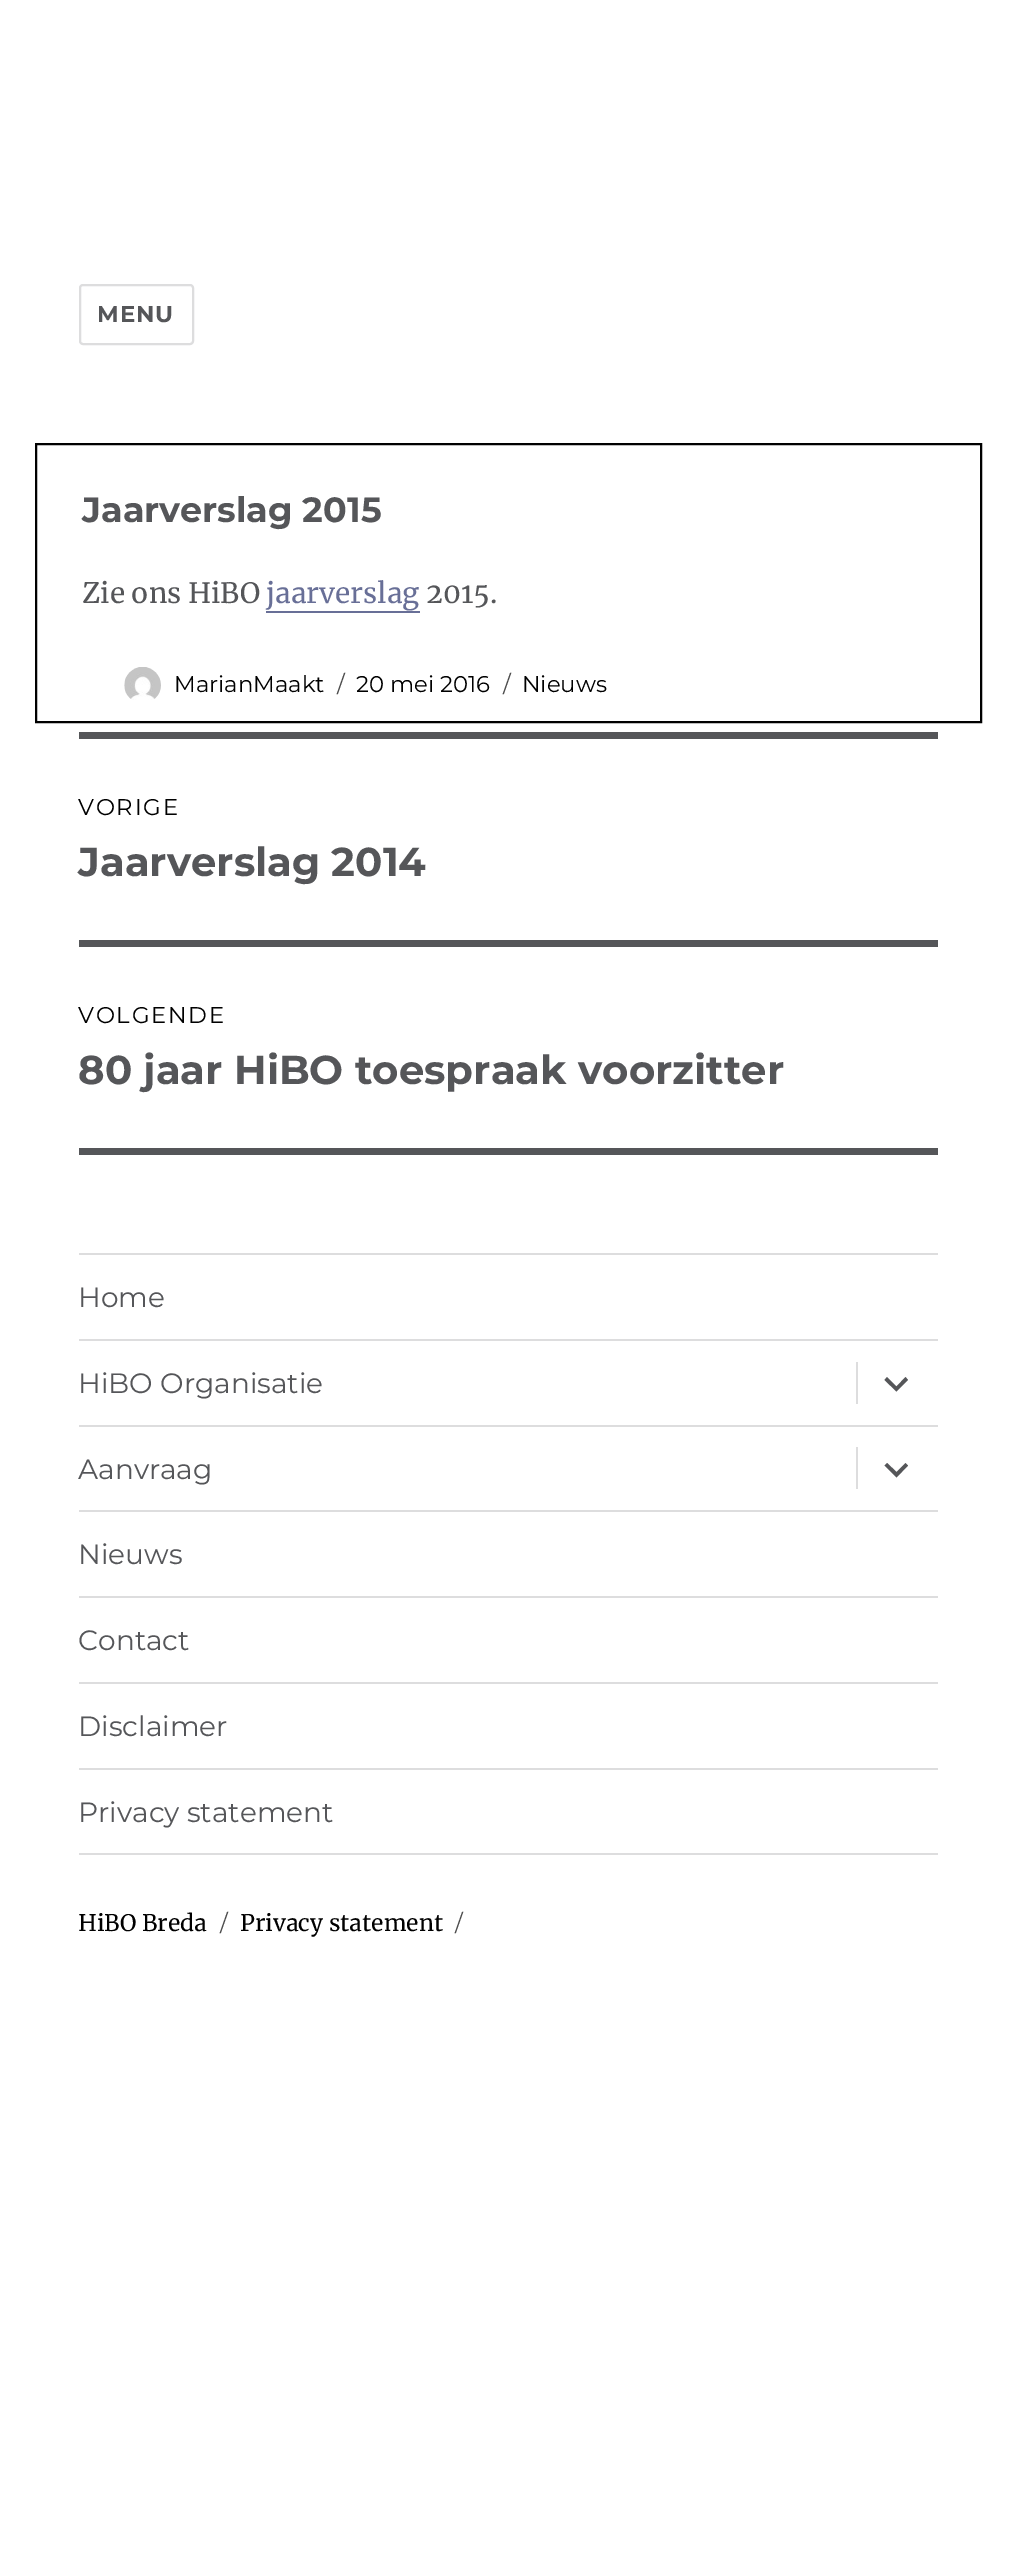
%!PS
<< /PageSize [1016 2573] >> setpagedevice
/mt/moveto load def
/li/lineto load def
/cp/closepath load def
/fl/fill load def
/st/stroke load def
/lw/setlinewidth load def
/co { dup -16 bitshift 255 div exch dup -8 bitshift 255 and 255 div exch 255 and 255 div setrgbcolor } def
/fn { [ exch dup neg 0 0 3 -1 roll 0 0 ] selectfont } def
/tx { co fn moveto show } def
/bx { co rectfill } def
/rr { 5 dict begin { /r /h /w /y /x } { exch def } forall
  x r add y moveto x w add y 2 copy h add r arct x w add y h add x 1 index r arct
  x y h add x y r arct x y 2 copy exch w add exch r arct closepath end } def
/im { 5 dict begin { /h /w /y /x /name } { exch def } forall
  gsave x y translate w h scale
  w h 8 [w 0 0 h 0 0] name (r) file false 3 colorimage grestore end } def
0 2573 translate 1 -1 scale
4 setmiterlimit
0 0 1016 2573 16#FFFFFF bx
16#DDDDDE co
2 lw
80 285 113 59 3 rr st
16#000000 co
36 444 945 278 rectstroke
266 611 154 2 16#686F97 bx
(media/1.raw) 124 667 37 33 im
79 732 859 7 16#555659 bx
79 1148 859 7 16#555659 bx
79 940 859 7 16#555659 bx
79 1853 859 2 16#DDDDDE bx
79 1253 859 2 16#DDDDDE bx
79 1339 859 2 16#DDDDDE bx
856 1362 2 42 16#DDDDDE bx
16#555659 co
905.5 1377 mt 908 1380 li 896.5 1391.5 li 884.5 1380 li 887 1377 li 896.5 1386.5 li cp fl
79 1425 859 2 16#DDDDDE bx
856 1447 2 42 16#DDDDDE bx
16#555659 co
905.5 1463 mt 908 1465.5 li 896.5 1477.5 li 884.5 1465.5 li 887 1463 li 896.5 1472 li cp fl
79 1510 859 2 16#DDDDDE bx
79 1596 859 2 16#DDDDDE bx
79 1682 859 2 16#DDDDDE bx
79 1768 859 2 16#DDDDDE bx
/Montserrat-Thin 22.75 fn
16#555659 co
97 322 mt 1 0 (MENU) ashow
(Jaarverslag 2015) 82 522 /Montserrat-Thin 35 16#555659 tx
(Zie ons HiBO) 82 603 /Merriweather-Regular 28 16#555659 tx
(jaarverslag) 266 603 /Merriweather-Regular 28 16#686F97 tx
(2015.) 426 603 /Merriweather-Regular 28 16#555659 tx
(MarianMaakt) 174 692 /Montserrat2-Thin 22.75 16#000000 tx
(/) 337 692 /Montserrat2-Thin 22.75 16#4D4D4D tx
(20 mei 2016) 356 692 /Montserrat2-Thin 22.75 16#000000 tx
(/) 503 692 /Montserrat2-Thin 22.75 16#4D4D4D tx
(Nieuws) 522 692 /Montserrat2-Thin 22.75 16#000000 tx
78 815 mt 1.75 0 (VORIGE) ashow
(Jaarverslag 2014) 78 876 /Montserrat-Thin 40.25 16#555659 tx
/Montserrat2-Thin 22.75 fn
16#000000 co
78 1023 mt 1.75 0 (VOLGENDE) ashow
(80 jaar HiBO toespraak voorzitter) 78 1084 /Montserrat-Thin 40.25 16#555659 tx
(Home) 78 1307 /Montserrat2-Thin 28 16#555659 tx
(HiBO Organisatie) 78 1393 /Montserrat2-Thin 28 16#555659 tx
(Aanvraag) 78 1479 /Montserrat2-Thin 28 16#555659 tx
(Nieuws) 78 1564 /Montserrat2-Thin 28 16#555659 tx
(Contact) 78 1650 /Montserrat2-Thin 28 16#555659 tx
(Disclaimer) 78 1736 /Montserrat2-Thin 28 16#555659 tx
(Privacy statement) 78 1822 /Montserrat2-Thin 28 16#555659 tx
(HiBO Breda) 78 1931 /Merriweather-Regular 22.75 16#000000 tx
(/) 220 1931 /Montserrat2-Thin 22.75 16#4D4D4D tx
(Privacy statement) 240 1931 /Merriweather-Regular 22.75 16#000000 tx
(/) 455 1931 /Montserrat2-Thin 22.75 16#4D4D4D tx
showpage
